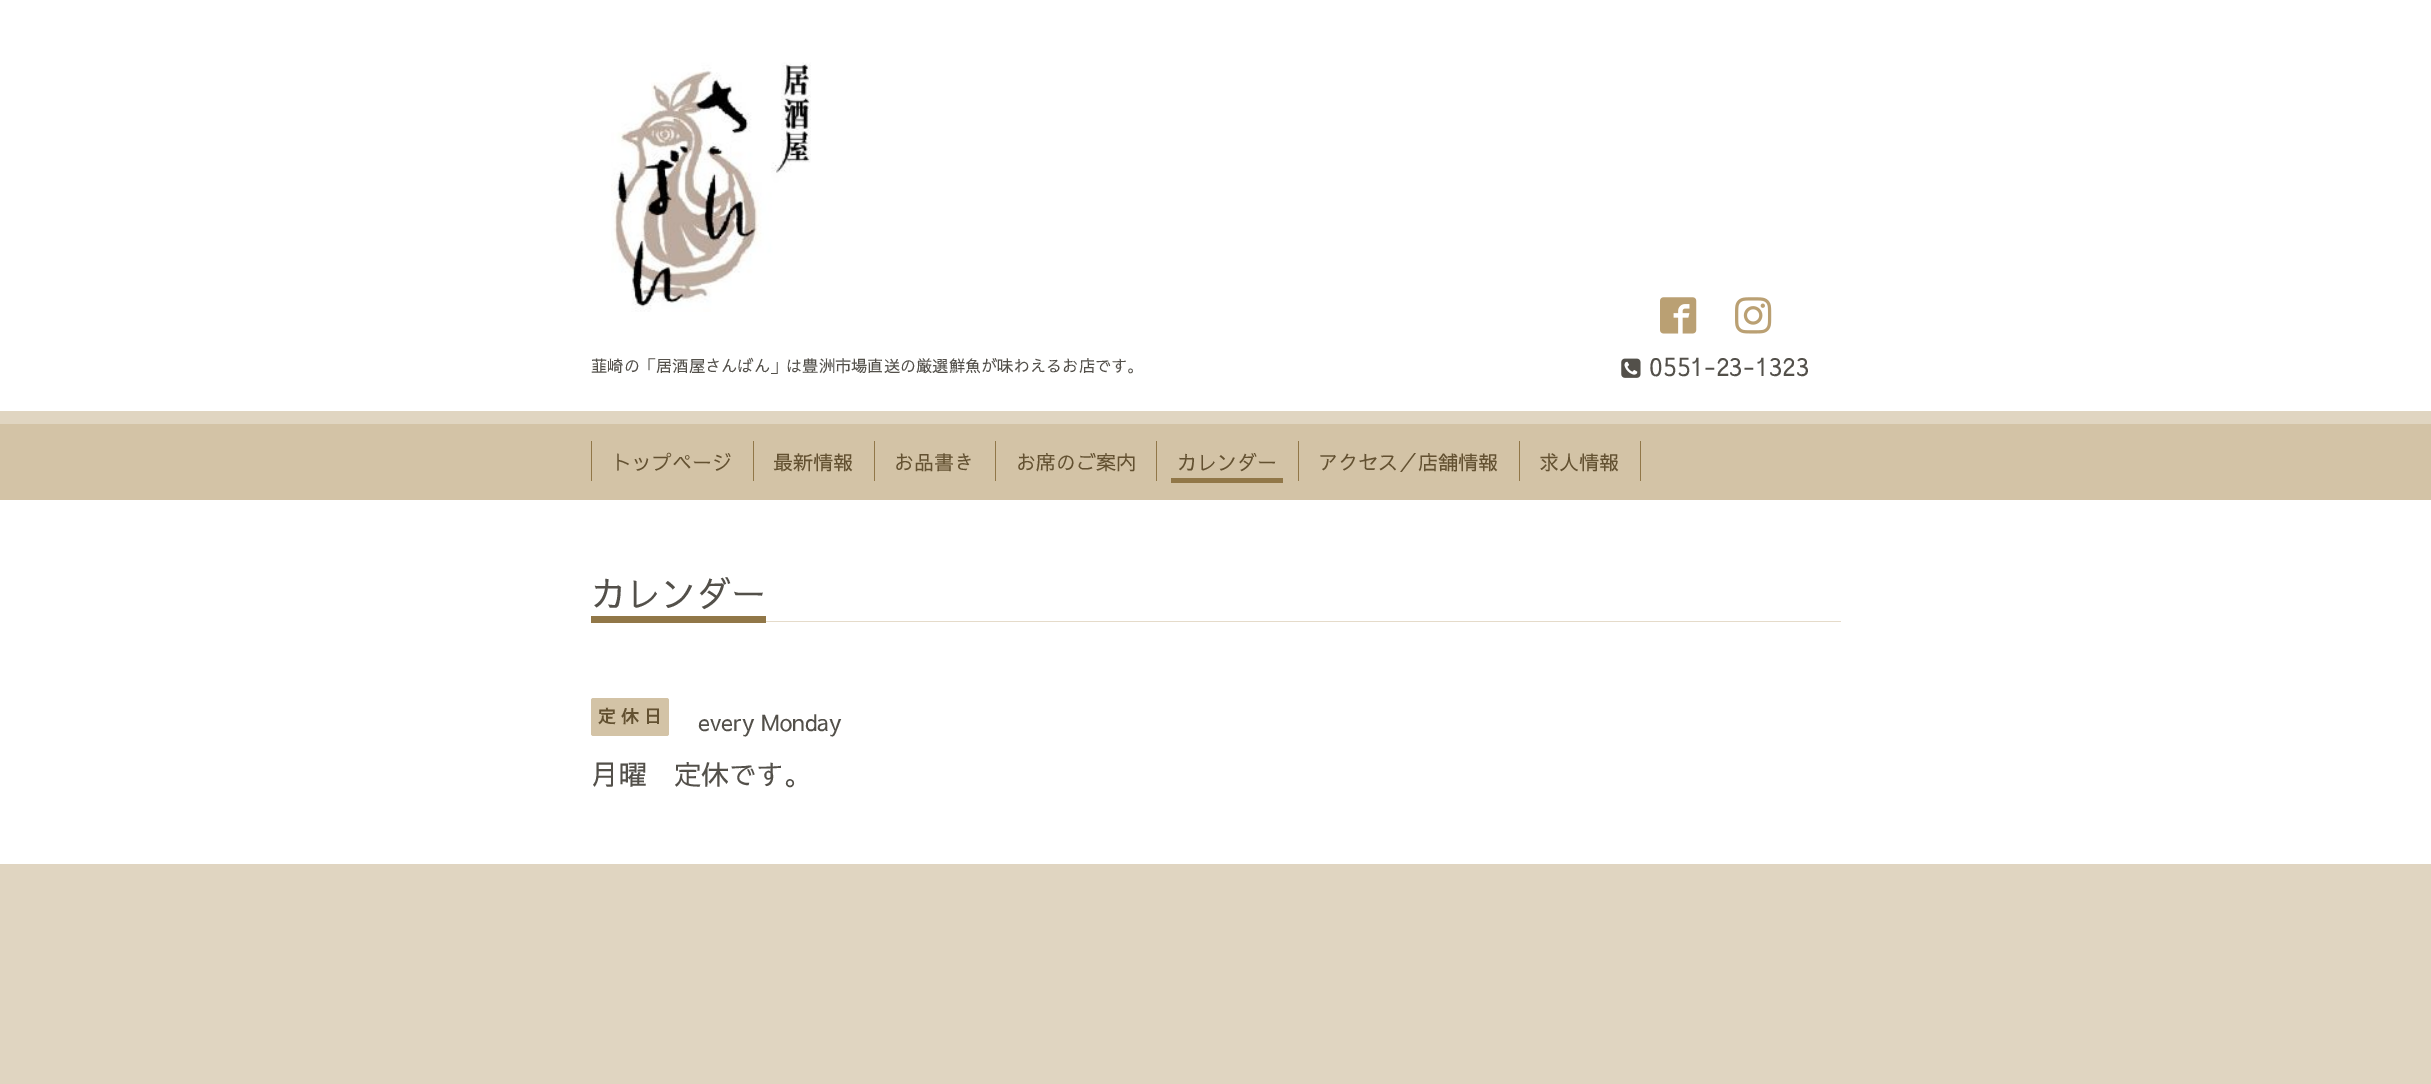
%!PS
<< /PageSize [2431 1084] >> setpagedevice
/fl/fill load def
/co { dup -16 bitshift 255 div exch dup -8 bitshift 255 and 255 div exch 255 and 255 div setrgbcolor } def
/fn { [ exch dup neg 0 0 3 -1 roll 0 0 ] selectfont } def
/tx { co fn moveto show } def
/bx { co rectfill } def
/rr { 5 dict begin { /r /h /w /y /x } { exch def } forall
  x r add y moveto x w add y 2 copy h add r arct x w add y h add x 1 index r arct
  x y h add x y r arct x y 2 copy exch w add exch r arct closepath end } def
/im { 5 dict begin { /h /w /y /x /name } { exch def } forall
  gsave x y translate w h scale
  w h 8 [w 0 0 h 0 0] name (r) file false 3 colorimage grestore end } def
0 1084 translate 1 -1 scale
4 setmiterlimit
0 0 2431 1084 16#FFFFFF bx
(media/1.raw) 611 62 200 250 im
(media/2.raw) 1660 297 37 37 im
(media/3.raw) 1735 297 37 37 im
(media/4.raw) 1621 358 20 20 im
0 411 2431 13 16#E0D5C1 bx
0 424 2431 76 16#D3C3A6 bx
753 441 1 40 16#917748 bx
591 441 1 40 16#917748 bx
874 441 1 40 16#917748 bx
995 441 1 40 16#917748 bx
1156 441 1 40 16#917748 bx
1298 441 1 40 16#917748 bx
1171 478 112 5 16#917748 bx
1519 441 1 40 16#917748 bx
1640 441 1 40 16#917748 bx
766 621 1075 1 16#E5DBCA bx
591 616 175 7 16#917748 bx
16#D3C3A6 co
591 698 78 38 2.5 rr fl
0 864 2431 220 16#E0D5C1 bx
(韮崎の「居酒屋さんばん」は豊洲市場直送の厳選鮮魚が味わえるお店です。) 591 372 /SawarabiGothic-Regular 16.25 16#53504A tx
(0551-23-1323) 1649 376 /SawarabiGothic-Regular 25 16#53504A tx
(トップページ) 612 470 /SawarabiGothic-Regular 20 16#635131 tx
(最新情報) 773 470 /SawarabiGothic-Regular 20 16#635131 tx
(お品書き) 894 470 /SawarabiGothic-Regular 20 16#635131 tx
(お席のご案内) 1016 470 /SawarabiGothic-Regular 20 16#635131 tx
(カレンダー) 1177 470 /SawarabiGothic-Regular 20 16#635131 tx
(アクセス／店舗情報) 1318 470 /SawarabiGothic-Regular 20 16#635131 tx
(求人情報) 1539 470 /SawarabiGothic-Regular 20 16#635131 tx
(カレンダー) 591 607 /SawarabiGothic-Regular 35 16#53504A tx
(定 休 日) 598 723 /SawarabiGothic-Bold 17.5 16#635131 tx
(every Monday) 698 731 /SawarabiGothic-Regular 22.5 16#53504A tx
(月曜　定休です。) 591 785 /SawarabiGothic-Regular 27.5 16#53504A tx
showpage
